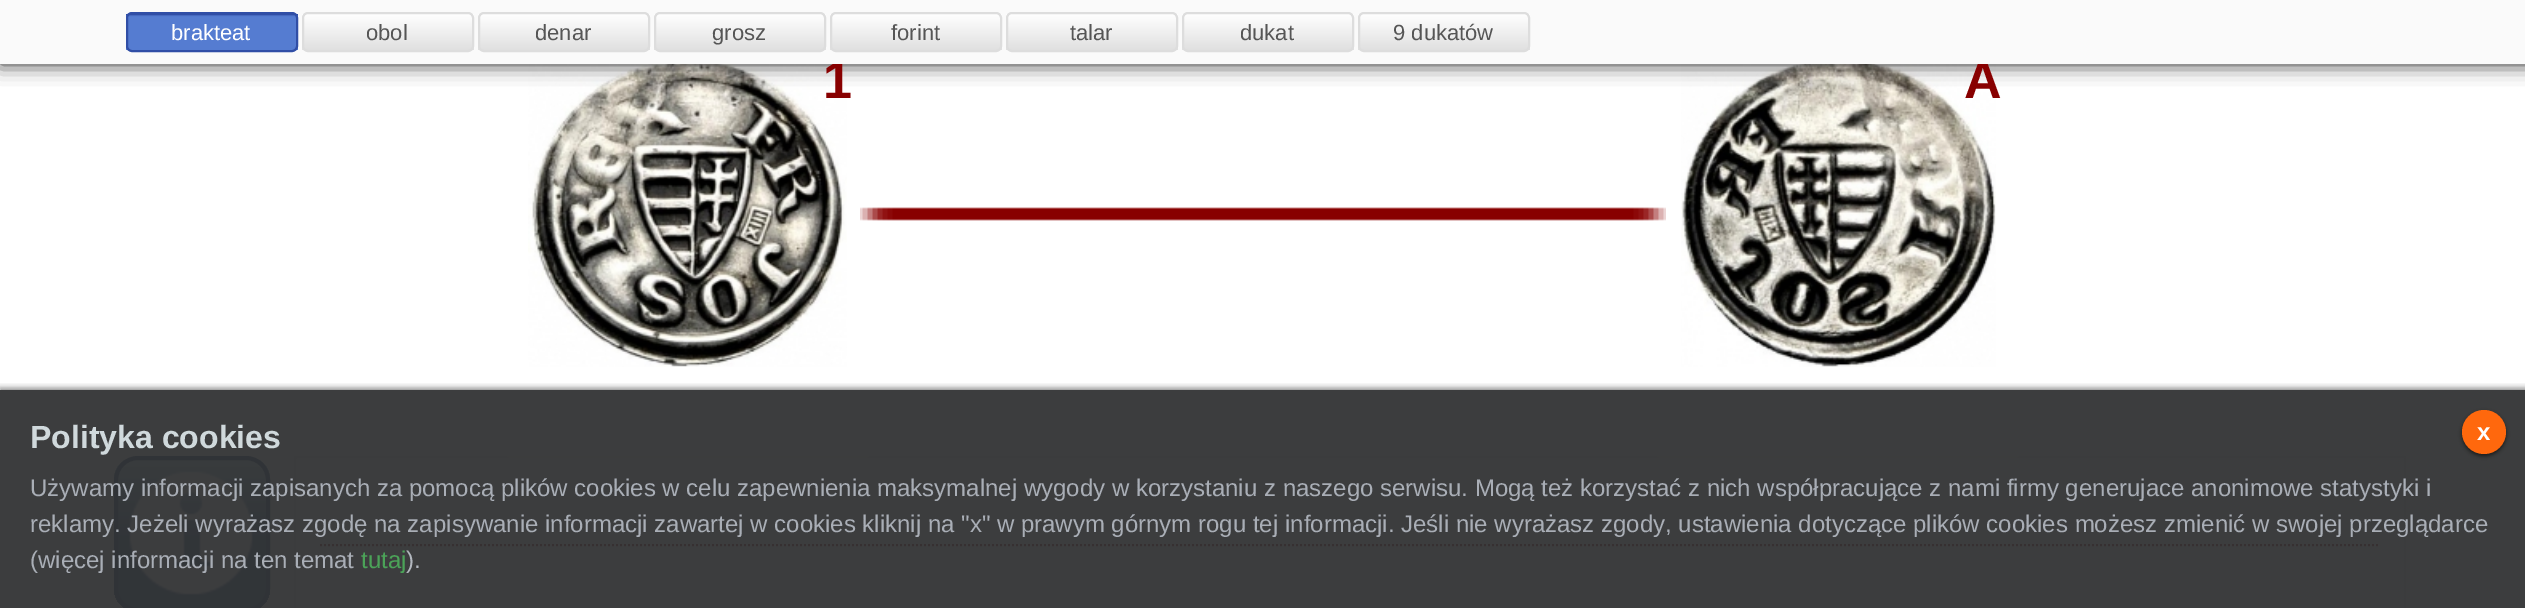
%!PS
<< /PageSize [2525 608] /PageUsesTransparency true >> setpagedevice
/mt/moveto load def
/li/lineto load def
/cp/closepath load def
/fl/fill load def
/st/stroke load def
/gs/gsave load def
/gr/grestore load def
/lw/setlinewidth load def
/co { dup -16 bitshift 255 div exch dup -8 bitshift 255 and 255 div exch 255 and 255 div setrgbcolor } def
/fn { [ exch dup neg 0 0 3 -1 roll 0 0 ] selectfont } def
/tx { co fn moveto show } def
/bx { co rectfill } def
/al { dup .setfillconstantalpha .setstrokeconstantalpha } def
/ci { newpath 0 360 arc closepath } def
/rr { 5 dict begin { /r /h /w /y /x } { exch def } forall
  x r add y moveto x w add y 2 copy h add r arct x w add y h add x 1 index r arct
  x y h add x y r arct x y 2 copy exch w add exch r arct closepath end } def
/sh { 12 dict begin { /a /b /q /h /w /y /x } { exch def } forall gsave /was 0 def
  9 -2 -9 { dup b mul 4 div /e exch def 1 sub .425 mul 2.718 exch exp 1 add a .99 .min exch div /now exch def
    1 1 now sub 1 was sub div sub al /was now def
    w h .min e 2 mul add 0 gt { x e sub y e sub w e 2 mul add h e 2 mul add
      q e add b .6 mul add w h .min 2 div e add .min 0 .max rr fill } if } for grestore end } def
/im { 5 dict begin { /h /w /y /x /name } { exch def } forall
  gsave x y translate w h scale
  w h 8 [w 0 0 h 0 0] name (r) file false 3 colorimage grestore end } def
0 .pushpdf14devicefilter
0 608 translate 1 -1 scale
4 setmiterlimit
0 0 2525 608 16#FFFFFF bx
(media/3.raw) 860 207 806 14 im
16#FAFAFA co
295 457 mt 2405 457 li 2405 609 li 295 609 li cp gs fl gr
16#DDDDDD co
2 lw
st
16#FFFFFF co
506 32 364 424 0 10 1 sh
(media/1.raw) 528 64 319 303 im
1656 32 364 424 0 10 1 sh
(media/2.raw) 1681 64 315 303 im
16#222222 co
0 0 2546 64 0 10 1 sh
gs
114 456 156 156 24 rr clip newpath
gs 114 460 mt 270 460 li 270 608 li 114 608 li cp clip newpath
<< /ShadingType 2 /ColorSpace /DeviceRGB /Coords [192 460 192 608] /Extend [true true] /Function << /FunctionType 3 /Domain [0 1] /Functions [<< /FunctionType 2 /Domain [0 1] /C0 [.655 .812 .875] /C1 [.655 .812 .875] /N 1 >> << /FunctionType 2 /Domain [0 1] /C0 [.655 .812 .875] /C1 [.137 .325 .541] /N 1 >> << /FunctionType 2 /Domain [0 1] /C0 [.137 .325 .541] /C1 [.137 .325 .541] /N 1 >>] /Bounds [.01 .53] /Encode [0 1 0 1 0 1] >> >> shfill gr
gr
16#0B3768 co
4 lw
116 458 152 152 22 rr st
(media/4.raw) 129 471 124 124 im
16#880000 co
2 lw
[2 2] 0 setdash
320 545 mt 2380 545 li st
gs
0 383 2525 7 rectclip
16#0D0D0D co
0 388 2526 218 0 3 .5 sh
gr
0.95 al
0 390 2525 218 16#323334 bx
1 al
16#0D0D0D co
2462 412 44 44 22 2 .75 sh
16#FF680D co
2484 432 22 ci fl
(1) 823 98 /LiberationSans-Bold 52 16#880000 tx
(A) 1964 98 /LiberationSans-Bold 52 16#880000 tx
0 0 2525 64 16#FAFAFA bx
gs
1358 12 172 40 6 rr clip newpath
gs 1358 14 mt 1530 14 li 1530 50 li 1358 50 li cp clip newpath
<< /ShadingType 2 /ColorSpace /DeviceRGB /Coords [1444 14 1444 50] /Extend [true true] /Function << /FunctionType 2 /Domain [0 1] /C0 [1 1 1] /C1 [.878 .878 .878] /N 1 >> >> shfill gr
gr
16#DDDDDD co
[] 0 setdash
1359 13 170 38 5 rr st
(9 dukatów) 1393 40 /LiberationSans-Regular 22 16#555555 tx
gs
1182 12 172 40 6 rr clip newpath
gs 1182 14 mt 1354 14 li 1354 50 li 1182 50 li cp clip newpath
<< /ShadingType 2 /ColorSpace /DeviceRGB /Coords [1268 14 1268 50] /Extend [true true] /Function << /FunctionType 2 /Domain [0 1] /C0 [1 1 1] /C1 [.878 .878 .878] /N 1 >> >> shfill gr
gr
16#DDDDDD co
1183 13 170 38 5 rr st
(dukat) 1240 40 /LiberationSans-Regular 22 16#555555 tx
gs
1006 12 172 40 6 rr clip newpath
gs 1006 14 mt 1178 14 li 1178 50 li 1006 50 li cp clip newpath
<< /ShadingType 2 /ColorSpace /DeviceRGB /Coords [1092 14 1092 50] /Extend [true true] /Function << /FunctionType 2 /Domain [0 1] /C0 [1 1 1] /C1 [.878 .878 .878] /N 1 >> >> shfill gr
gr
16#DDDDDD co
1007 13 170 38 5 rr st
(talar) 1070 40 /LiberationSans-Regular 22 16#555555 tx
gs
830 12 172 40 6 rr clip newpath
gs 830 14 mt 1002 14 li 1002 50 li 830 50 li cp clip newpath
<< /ShadingType 2 /ColorSpace /DeviceRGB /Coords [916 14 916 50] /Extend [true true] /Function << /FunctionType 2 /Domain [0 1] /C0 [1 1 1] /C1 [.878 .878 .878] /N 1 >> >> shfill gr
gr
16#DDDDDD co
831 13 170 38 5 rr st
(forint) 891 40 /LiberationSans-Regular 22 16#555555 tx
gs
654 12 172 40 6 rr clip newpath
gs 654 14 mt 826 14 li 826 50 li 654 50 li cp clip newpath
<< /ShadingType 2 /ColorSpace /DeviceRGB /Coords [740 14 740 50] /Extend [true true] /Function << /FunctionType 2 /Domain [0 1] /C0 [1 1 1] /C1 [.878 .878 .878] /N 1 >> >> shfill gr
gr
16#DDDDDD co
655 13 170 38 5 rr st
(grosz) 712 40 /LiberationSans-Regular 22 16#555555 tx
gs
478 12 172 40 6 rr clip newpath
gs 478 14 mt 650 14 li 650 50 li 478 50 li cp clip newpath
<< /ShadingType 2 /ColorSpace /DeviceRGB /Coords [564 14 564 50] /Extend [true true] /Function << /FunctionType 2 /Domain [0 1] /C0 [1 1 1] /C1 [.878 .878 .878] /N 1 >> >> shfill gr
gr
16#DDDDDD co
479 13 170 38 5 rr st
(denar) 535 40 /LiberationSans-Regular 22 16#555555 tx
gs
302 12 172 40 6 rr clip newpath
gs 302 14 mt 474 14 li 474 50 li 302 50 li cp clip newpath
<< /ShadingType 2 /ColorSpace /DeviceRGB /Coords [388 14 388 50] /Extend [true true] /Function << /FunctionType 2 /Domain [0 1] /C0 [1 1 1] /C1 [.878 .878 .878] /N 1 >> >> shfill gr
gr
16#DDDDDD co
303 13 170 38 5 rr st
(obol) 366 40 /LiberationSans-Regular 22 16#555555 tx
gs
126 12 172 40 6 rr clip newpath
gs 126 14 mt 298 14 li 298 50 li 126 50 li cp clip newpath
<< /ShadingType 2 /ColorSpace /DeviceRGB /Coords [212 50 212 14] /Extend [true true] /Function << /FunctionType 3 /Domain [0 1] /Functions [<< /FunctionType 2 /Domain [0 1] /C0 [.333 .486 .82] /C1 [.333 .486 .82] /N 1 >> << /FunctionType 2 /Domain [0 1] /C0 [.333 .486 .82] /C1 [.188 .306 .651] /N 1 >>] /Bounds [.93] /Encode [0 1 0 1] >> >> shfill gr
gr
16#304EA6 co
127 13 170 38 5 rr st
(brakteat) 171 40 /LiberationSans-Regular 22 16#FFFFFF tx
(Polityka cookies) 30 448 /LiberationSans-Bold 32 16#D0D9DC tx
(x) 2477 440 /LiberationSans-Bold 24 16#FFFFFF tx
(Używamy informacji zapisanych za pomocą plików cookies w celu zapewnienia maksymalnej wygody w korzystaniu z naszego serwisu. Mogą też korzystać z nich współpracujące z nami firmy generujace anonimowe statystyki i) 30 496 /LiberationSans-Regular 24 16#A9AEB6 tx
(reklamy. Jeżeli wyrażasz zgodę na zapisywanie informacji zawartej w cookies kliknij na "x" w prawym górnym rogu tej informacji. Jeśli nie wyrażasz zgody, ustawienia dotyczące plików cookies możesz zmienić w swojej przeglądarce) 30 532 /LiberationSans-Regular 24 16#A9AEB6 tx
(\(więcej informacji na ten temat) 30 568 /LiberationSans-Regular 24 16#A9AEB6 tx
(tutaj) 361 568 /LiberationSans-Regular 24 16#4BA358 tx
(\).) 406 568 /LiberationSans-Regular 24 16#B3B8BF tx
.poppdf14devicefilter showpage
